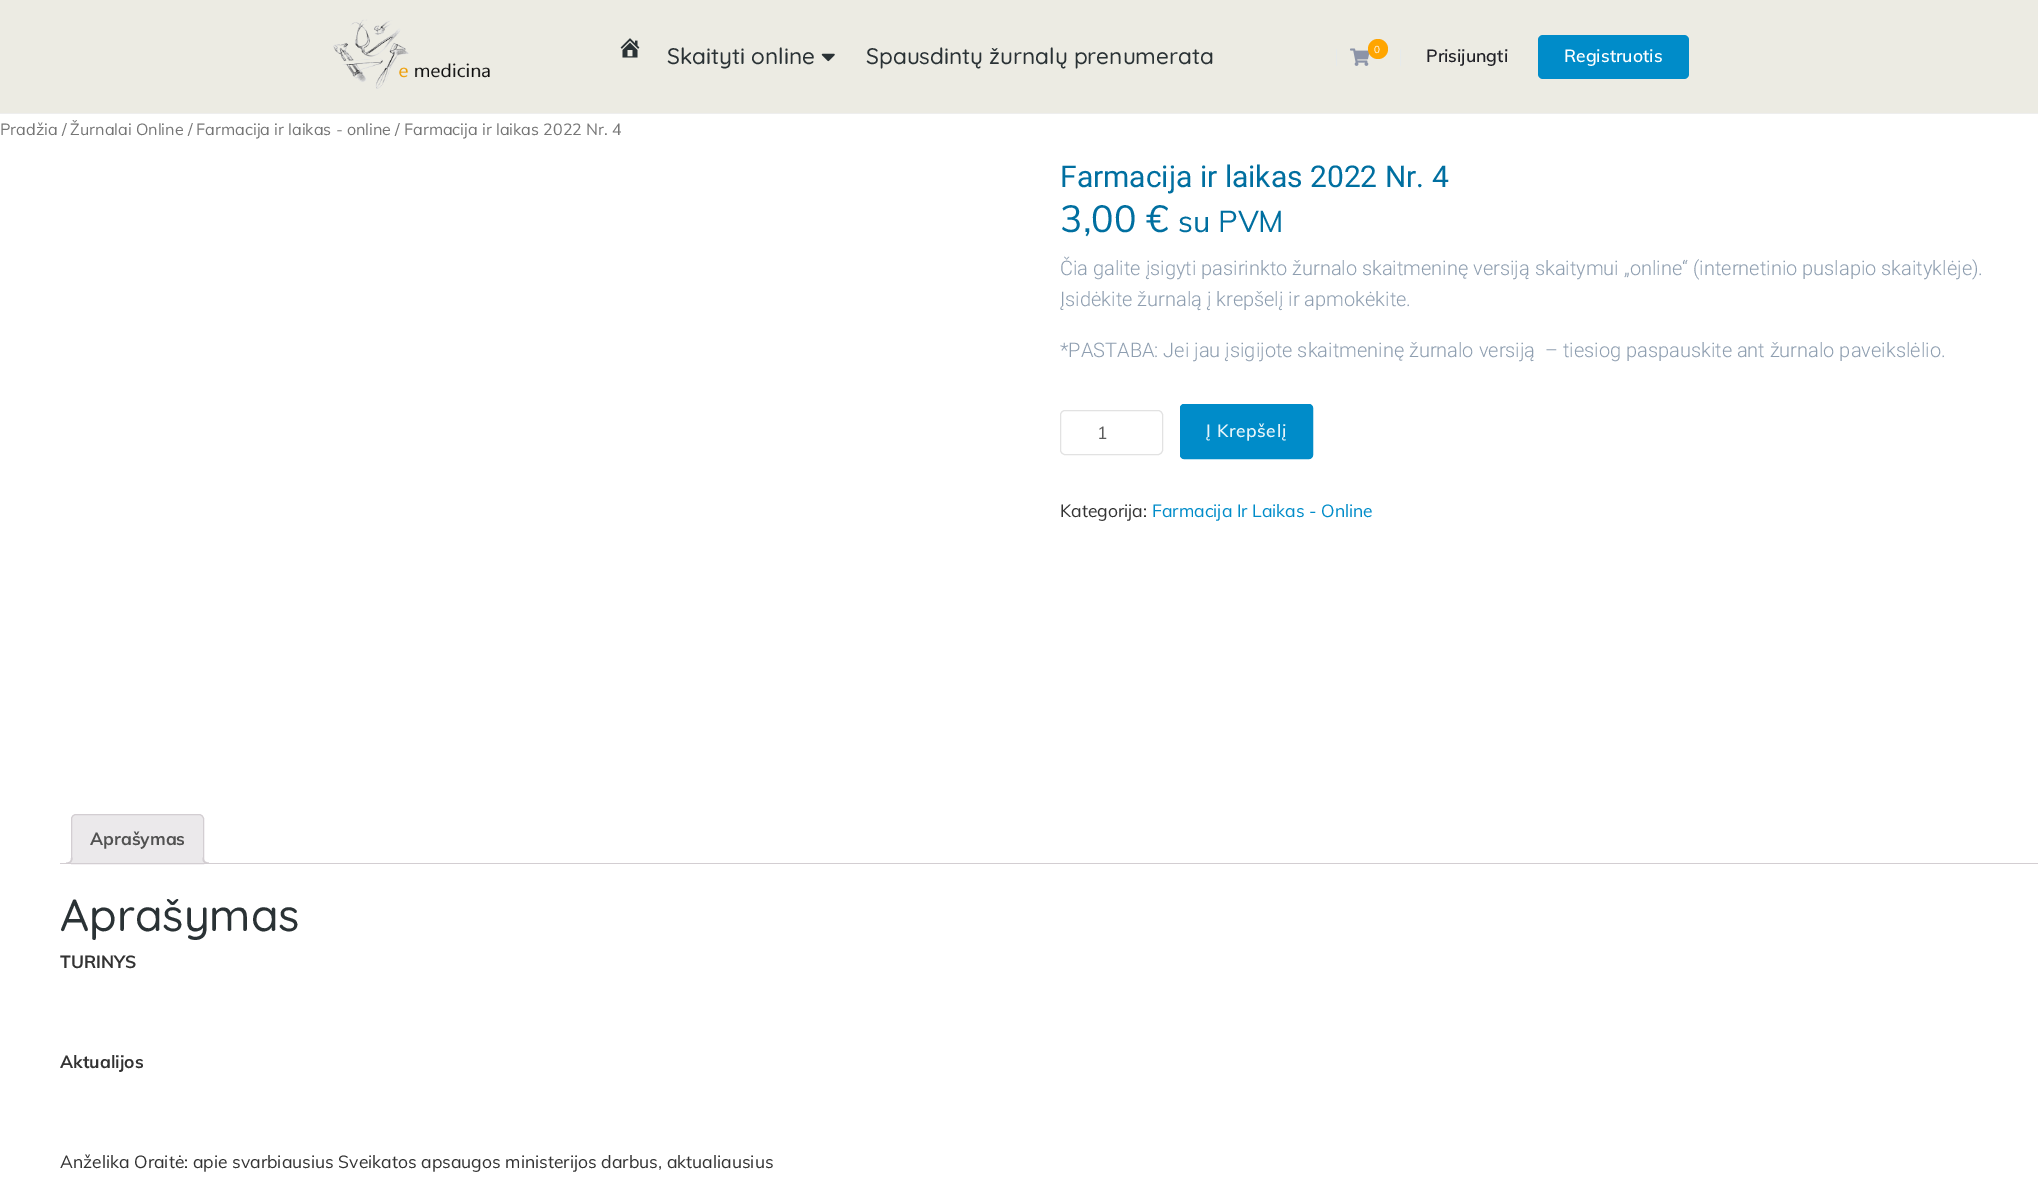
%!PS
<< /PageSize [2038 1202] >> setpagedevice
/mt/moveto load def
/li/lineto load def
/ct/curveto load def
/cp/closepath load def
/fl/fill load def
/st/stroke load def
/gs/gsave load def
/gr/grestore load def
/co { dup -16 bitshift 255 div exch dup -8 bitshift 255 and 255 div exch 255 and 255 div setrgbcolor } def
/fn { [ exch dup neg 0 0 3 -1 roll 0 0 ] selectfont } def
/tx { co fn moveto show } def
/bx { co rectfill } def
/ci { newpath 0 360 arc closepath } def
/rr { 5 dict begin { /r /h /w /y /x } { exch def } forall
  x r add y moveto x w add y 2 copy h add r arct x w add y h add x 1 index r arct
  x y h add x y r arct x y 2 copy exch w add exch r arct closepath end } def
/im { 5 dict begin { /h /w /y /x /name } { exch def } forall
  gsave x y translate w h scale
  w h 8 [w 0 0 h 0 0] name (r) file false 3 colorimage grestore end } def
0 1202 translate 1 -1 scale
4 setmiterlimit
0 0 2038 1202 16#FFFFFF bx
0 0 2038 113 16#ECEBE3 bx
0 113 2038 1 16#EEEEEE bx
(media/1.raw) 333 19 157 70 im
(media/2.raw) 620 38 20 20 im
(media/3.raw) 821 53 14 9 im
1400 49 1 17 16#E6EAEB bx
1336 49 1 17 16#E6EAEB bx
(media/4.raw) 1350 48 20 18 im
16#FFA500 co
1378 49 10 ci fl
16#008CC9 co
1538 35 151 44 5 rr fl
16#E2E2E2 co
1060.5 410.5 102 44 4.5 rr st
16#008CC9 co
1180.5 404.5 132 54 3.5 rr gs fl gr
st
16#EBE9EB co
76 814.5 mt 199 814.5 li 201.5 814.5 203.5 816.5 203.5 819 ct 203.5 863.5 li 71.5 863.5 li 71.5 819 li 71.5 816.5 73.5 814.5 76 814.5 ct cp gs fl gr
16#D3CED2 co
st
gs
60 814 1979 50 rectclip
16#EBE9EB co
69 863.5 mt 69 866 li 73 866 75 864 75 860 ct 72.5 860 li 72 861.5 70.5 863 69 863.5 ct cp fl
gr
66 857.5 mt 72.5 857.5 li 72.5 862 70.5 864 66 864 ct cp 66 857.5 mt 71 857.5 li 71 861 70 862.5 66 862.5 ct cp eofill
gs
60 814 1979 50 rectclip
16#EBE9EB co
200 860 mt 200 864 202 866 206 866 ct 206 863.5 li 204.5 863 203 861.5 202.5 860 ct cp fl
gr
202.5 857.5 mt 209 857.5 li 209 864 li 205.5 864 202.5 862.5 202.5 859 ct cp 204 857.5 mt 209 857.5 li 209 862.5 li 206.5 862.5 204 861.5 204 859 ct cp eofill
60 863 1978 1 16#D3CED2 bx
(Skaityti online) 667 64 /Quicksand-Medium 22.5 16#2A3235 tx
(Spausdintų žurnalų prenumerata) 866 64 /Quicksand-Medium 22.5 16#2A3235 tx
(0) 1374 53 /Muli-Regular 10 16#FFFFFF tx
(Prisijungti) 1426 62 /Muli-SemiBold 17.5 16#212127 tx
(Registruotis) 1564 62 /Muli-SemiBold 17.5 16#FFFFFF tx
(Pradžia / Žurnalai Online / Farmacija ir laikas - online / Farmacija ir laikas 2022 Nr. 4) 0 135 /Muli-Regular 16.1 16#767676 tx
(Farmacija ir laikas 2022 Nr. 4) 1060 187 /Roboto-Regular 30 16#006FA0 tx
(3,00 €) 1060 232 /Muli-Regular 37.5 16#006FA0 tx
(su PVM) 1178 232 /Muli-Regular 30 16#006FA0 tx
(Čia galite įsigyti pasirinkto žurnalo skaitmeninę versiją skaitymui „online“ \(internetinio puslapio skaityklėje\).) 1060 275 /Roboto-Light 20 16#8E9EB0 tx
(Įsidėkite žurnalą į krepšelį ir apmokėkite.) 1060 306 /Roboto-Light 20 16#8E9EB0 tx
(*PASTABA: Jei jau įsigijote skaitmeninę žurnalo versiją  – tiesiog paspauskite ant žurnalo paveikslėlio.) 1060 357 /Roboto-Light 20 16#8E9EB0 tx
(1) 1097 439 /Muli-Regular 17.5 16#5C5C5C tx
/Muli-SemiBold 17.5 fn
16#E6F4FA co
1206 437 mt .6 0 (Į Krepšelį) ashow
(Kategorija:) 1060 517 /Muli-Regular 17.5 16#333333 tx
(Farmacija Ir Laikas - Online) 1152 517 /Muli-Regular 17.5 16#008CC9 tx
(Aprašymas) 90 845 /Muli-Bold 17.5 16#515151 tx
(Aprašymas) 60 931 /Quicksand-Medium 45 16#2A3235 tx
(TURINYS) 60 968 /Muli-Bold 17.5 16#333333 tx
(Aktualijos) 60 1068 /Muli-Bold 17.5 16#333333 tx
(Anželika Oraitė: apie svarbiausius Sveikatos apsaugos ministerijos darbus, aktualiausius) 60 1168 /Muli-Regular 17.5 16#333333 tx
showpage
